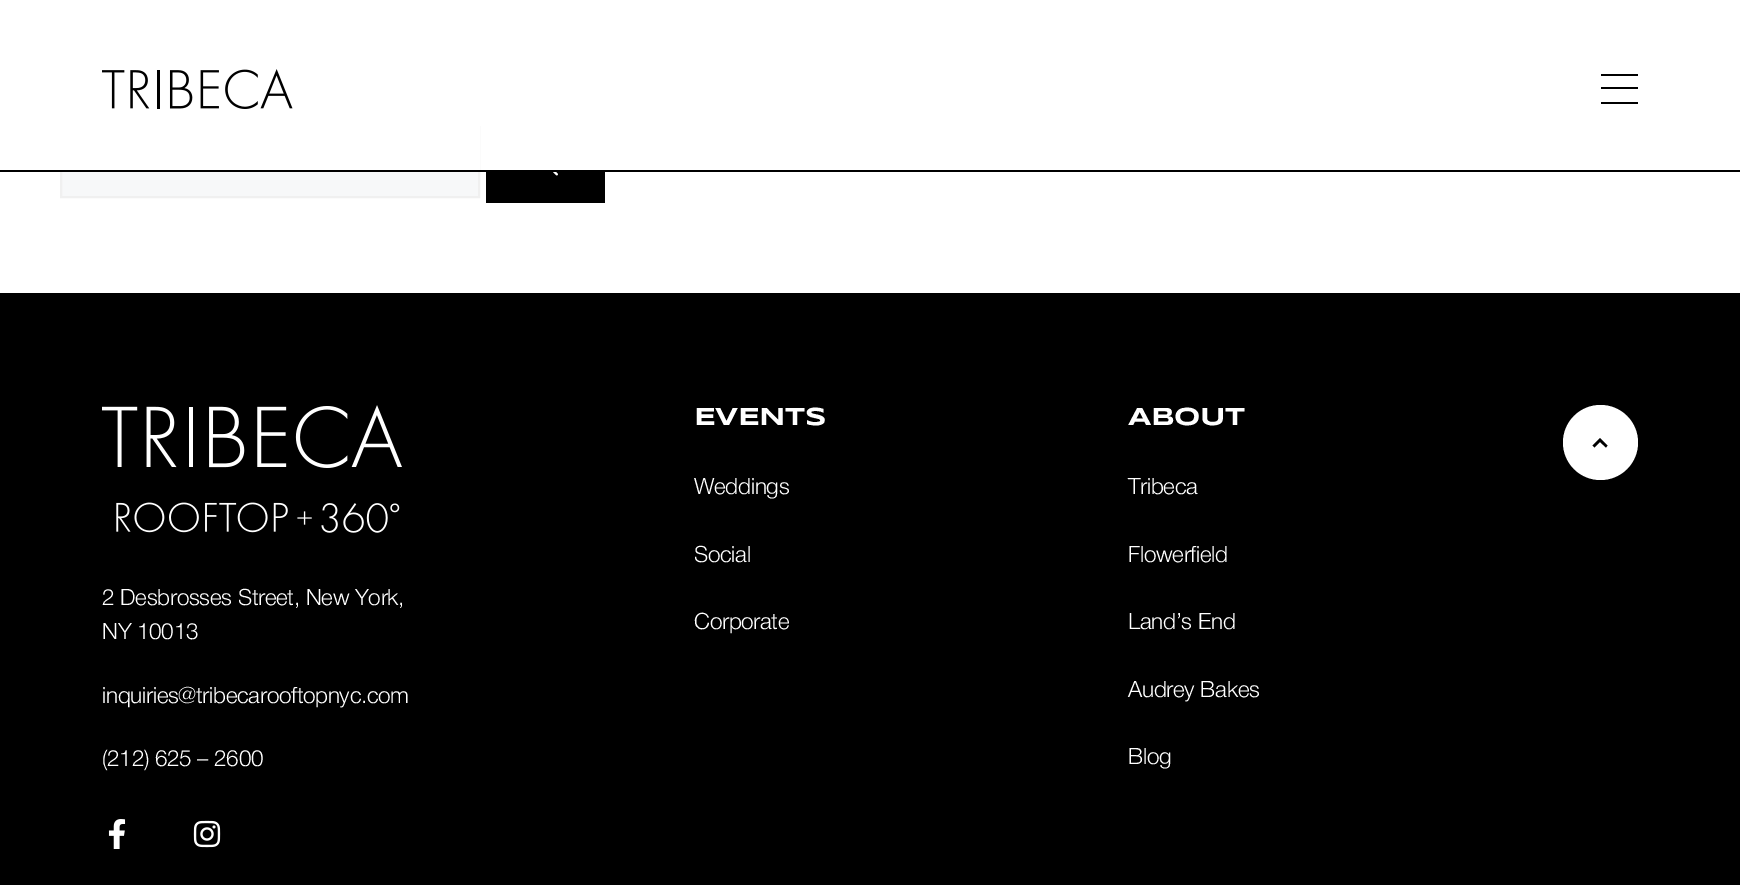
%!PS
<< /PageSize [1740 885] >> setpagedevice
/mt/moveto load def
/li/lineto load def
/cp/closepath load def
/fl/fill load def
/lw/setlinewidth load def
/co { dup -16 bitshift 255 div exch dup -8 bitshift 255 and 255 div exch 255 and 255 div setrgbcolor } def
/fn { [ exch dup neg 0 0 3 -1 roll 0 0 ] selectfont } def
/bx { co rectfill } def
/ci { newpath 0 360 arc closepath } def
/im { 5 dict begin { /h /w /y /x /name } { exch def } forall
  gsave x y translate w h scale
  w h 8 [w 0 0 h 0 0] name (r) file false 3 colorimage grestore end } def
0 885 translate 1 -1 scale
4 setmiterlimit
0 0 1740 885 16#FFFFFF bx
62 172 416 24 16#F7F8F9 bx
16#F0F0F0 co
2 lw
61 127 418 70 rectstroke
60 126 420 44 16#FFFFFF bx
0 170 1740 2 16#000000 bx
(media/1.raw) 102 69 191 40 im
1601 74 37 2 16#000000 bx
1601 87 37 2 16#000000 bx
1601 102 37 2 16#000000 bx
486 172 119 31 16#000000 bx
(media/2.raw) 553 172 5 4 im
0 293 1740 592 16#000000 bx
(media/3.raw) 102 405 300 128 im
(media/4.raw) 108 819 18 30 im
(media/5.raw) 193 820 28 28 im
16#FFFFFF co
1600.5 442.5 37.5 ci fl
16#000000 co
1606 447.5 mt 1600 442 li 1594.5 447.5 li 1592.5 445.5 li 1600 438 li 1607.5 445.5 li cp fl
/HelveticaNeue-Light 22.5 fn
16#FFFFFF co
102 605 mt -.3 0 (2 Desbrosses Street, New York,) ashow
102 639 mt -.3 0 (NY 10013) ashow
102 703 mt -.3 0 (inquiries@tribecarooftopnyc.com) ashow
102 766 mt -.3 0 (\(212\) 625 – 2600) ashow
/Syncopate-Bold 25.5 fn
694 425 mt -.5 0 (EVENTS) ashow
/HelveticaNeue-Light 22.5 fn
694 494 mt -.3 0 (Weddings) ashow
694 562 mt -.3 0 (Social) ashow
694 629 mt -.3 0 (Corporate) ashow
/Syncopate-Bold 25.5 fn
1128 425 mt -.5 0 (ABOUT) ashow
/HelveticaNeue-Light 22.5 fn
1128 494 mt -.3 0 (Tribeca) ashow
1128 562 mt -.3 0 (Flowerfield) ashow
1128 629 mt -.3 0 (Land’s End) ashow
1128 697 mt -.3 0 (Audrey Bakes) ashow
1128 764 mt -.3 0 (Blog) ashow
showpage
